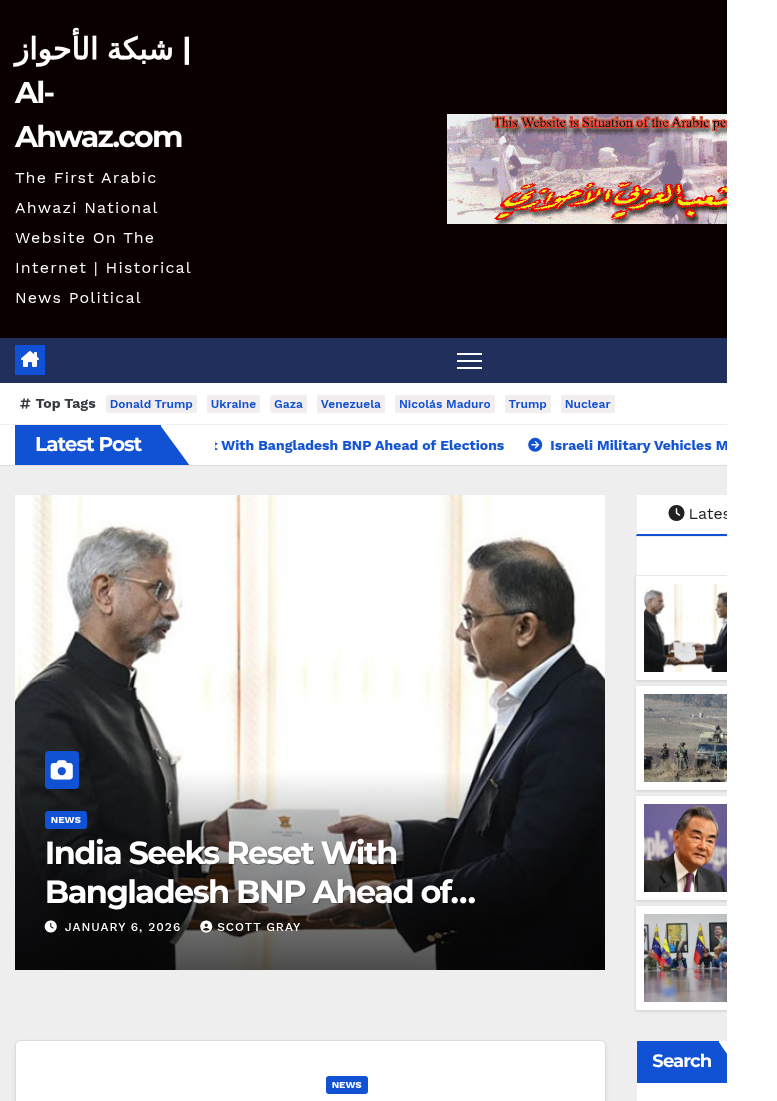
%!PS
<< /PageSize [777 1101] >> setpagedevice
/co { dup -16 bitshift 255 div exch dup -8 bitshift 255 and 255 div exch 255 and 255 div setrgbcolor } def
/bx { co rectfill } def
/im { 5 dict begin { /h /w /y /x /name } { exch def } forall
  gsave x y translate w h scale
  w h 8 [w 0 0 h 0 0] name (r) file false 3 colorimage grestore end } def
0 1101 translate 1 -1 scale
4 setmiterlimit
0 0 777 1101 16#FFFFFF bx
(media/1.raw) 0 0 727 1101 im
showpage
